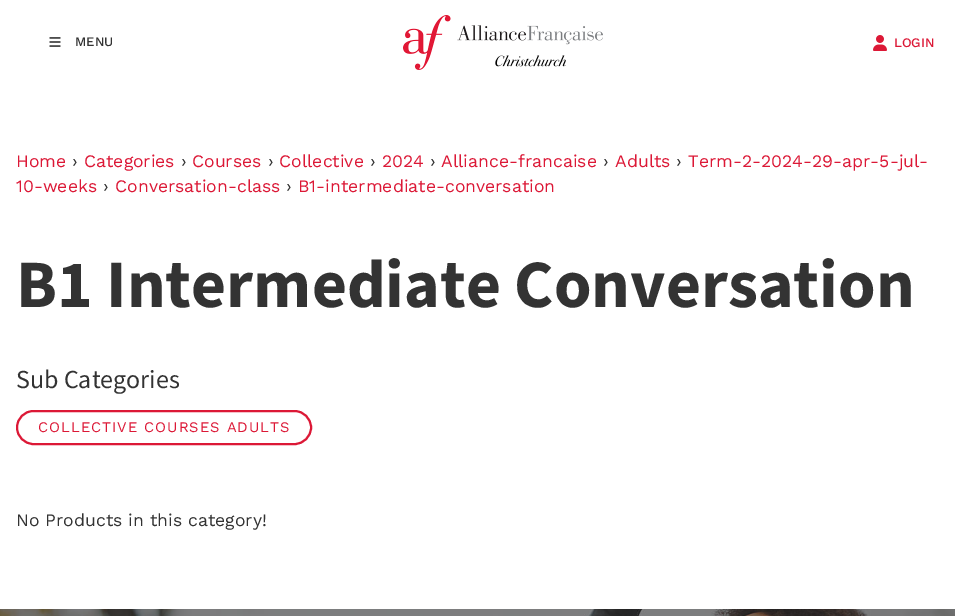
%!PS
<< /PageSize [955 616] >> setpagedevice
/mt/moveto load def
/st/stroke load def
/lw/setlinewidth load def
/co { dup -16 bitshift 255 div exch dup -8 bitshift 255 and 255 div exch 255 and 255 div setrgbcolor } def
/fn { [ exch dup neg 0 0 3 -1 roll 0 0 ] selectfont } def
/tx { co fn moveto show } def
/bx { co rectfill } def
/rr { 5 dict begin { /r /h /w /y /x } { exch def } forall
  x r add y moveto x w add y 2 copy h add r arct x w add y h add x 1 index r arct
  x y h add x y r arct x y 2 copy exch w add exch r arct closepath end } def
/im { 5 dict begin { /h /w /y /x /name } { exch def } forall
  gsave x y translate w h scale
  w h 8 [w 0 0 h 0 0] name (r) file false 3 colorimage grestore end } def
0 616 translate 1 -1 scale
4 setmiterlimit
0 0 955 616 16#FFFFFF bx
(media/1.raw) 49 37 12 10 im
(media/2.raw) 403 15 200 55 im
(media/3.raw) 873 35 14 16 im
16#DC1836 co
2 lw
17 411 294 33 16.5 rr st
(media/4.raw) 0 609 955 7 im
(MENU) 75 46 /WorkSans-Medium 13 16#333333 tx
(LOGIN) 894 47 /WorkSans-Medium 13 16#DC1836 tx
(Home) 16 167 /WorkSans-Regular 17.6 16#DC1836 tx
(›) 72 167 /WorkSans-Regular 17.6 16#333333 tx
(Categories) 84 167 /WorkSans-Regular 17.6 16#DC1836 tx
(›) 181 167 /WorkSans-Regular 17.6 16#333333 tx
(Courses) 192 167 /WorkSans-Regular 17.6 16#DC1836 tx
(›) 268 167 /WorkSans-Regular 17.6 16#333333 tx
(Collective) 279 167 /WorkSans-Regular 17.6 16#DC1836 tx
(›) 370 167 /WorkSans-Regular 17.6 16#333333 tx
(2024) 382 167 /WorkSans-Regular 17.6 16#DC1836 tx
(›) 430 167 /WorkSans-Regular 17.6 16#333333 tx
(Alliance-francaise) 441 167 /WorkSans-Regular 17.6 16#DC1836 tx
(›) 603 167 /WorkSans-Regular 17.6 16#333333 tx
(Adults) 615 167 /WorkSans-Regular 17.6 16#DC1836 tx
(›) 676 167 /WorkSans-Regular 17.6 16#333333 tx
(Term-2-2024-29-apr-5-jul-) 688 167 /WorkSans-Regular 17.6 16#DC1836 tx
(10-weeks) 16 192 /WorkSans-Regular 17.6 16#DC1836 tx
(›) 103 192 /WorkSans-Regular 17.6 16#333333 tx
(Conversation-class) 115 192 /WorkSans-Regular 17.6 16#DC1836 tx
(›) 286 192 /WorkSans-Regular 17.6 16#333333 tx
(B1-intermediate-conversation) 298 192 /WorkSans-Regular 17.6 16#DC1836 tx
(B1 Intermediate Conversation) 16 307 /Mada-Bold 67.75 16#333333 tx
(Sub Categories) 16 388 /Mada-Regular 26 16#333333 tx
/WorkSans-Regular 14.7 fn
16#DC1836 co
38 432 mt 1 0 (COLLECTIVE COURSES ADULTS) ashow
(No Products in this category!) 16 526 /WorkSans-Regular 17.6 16#333333 tx
showpage
